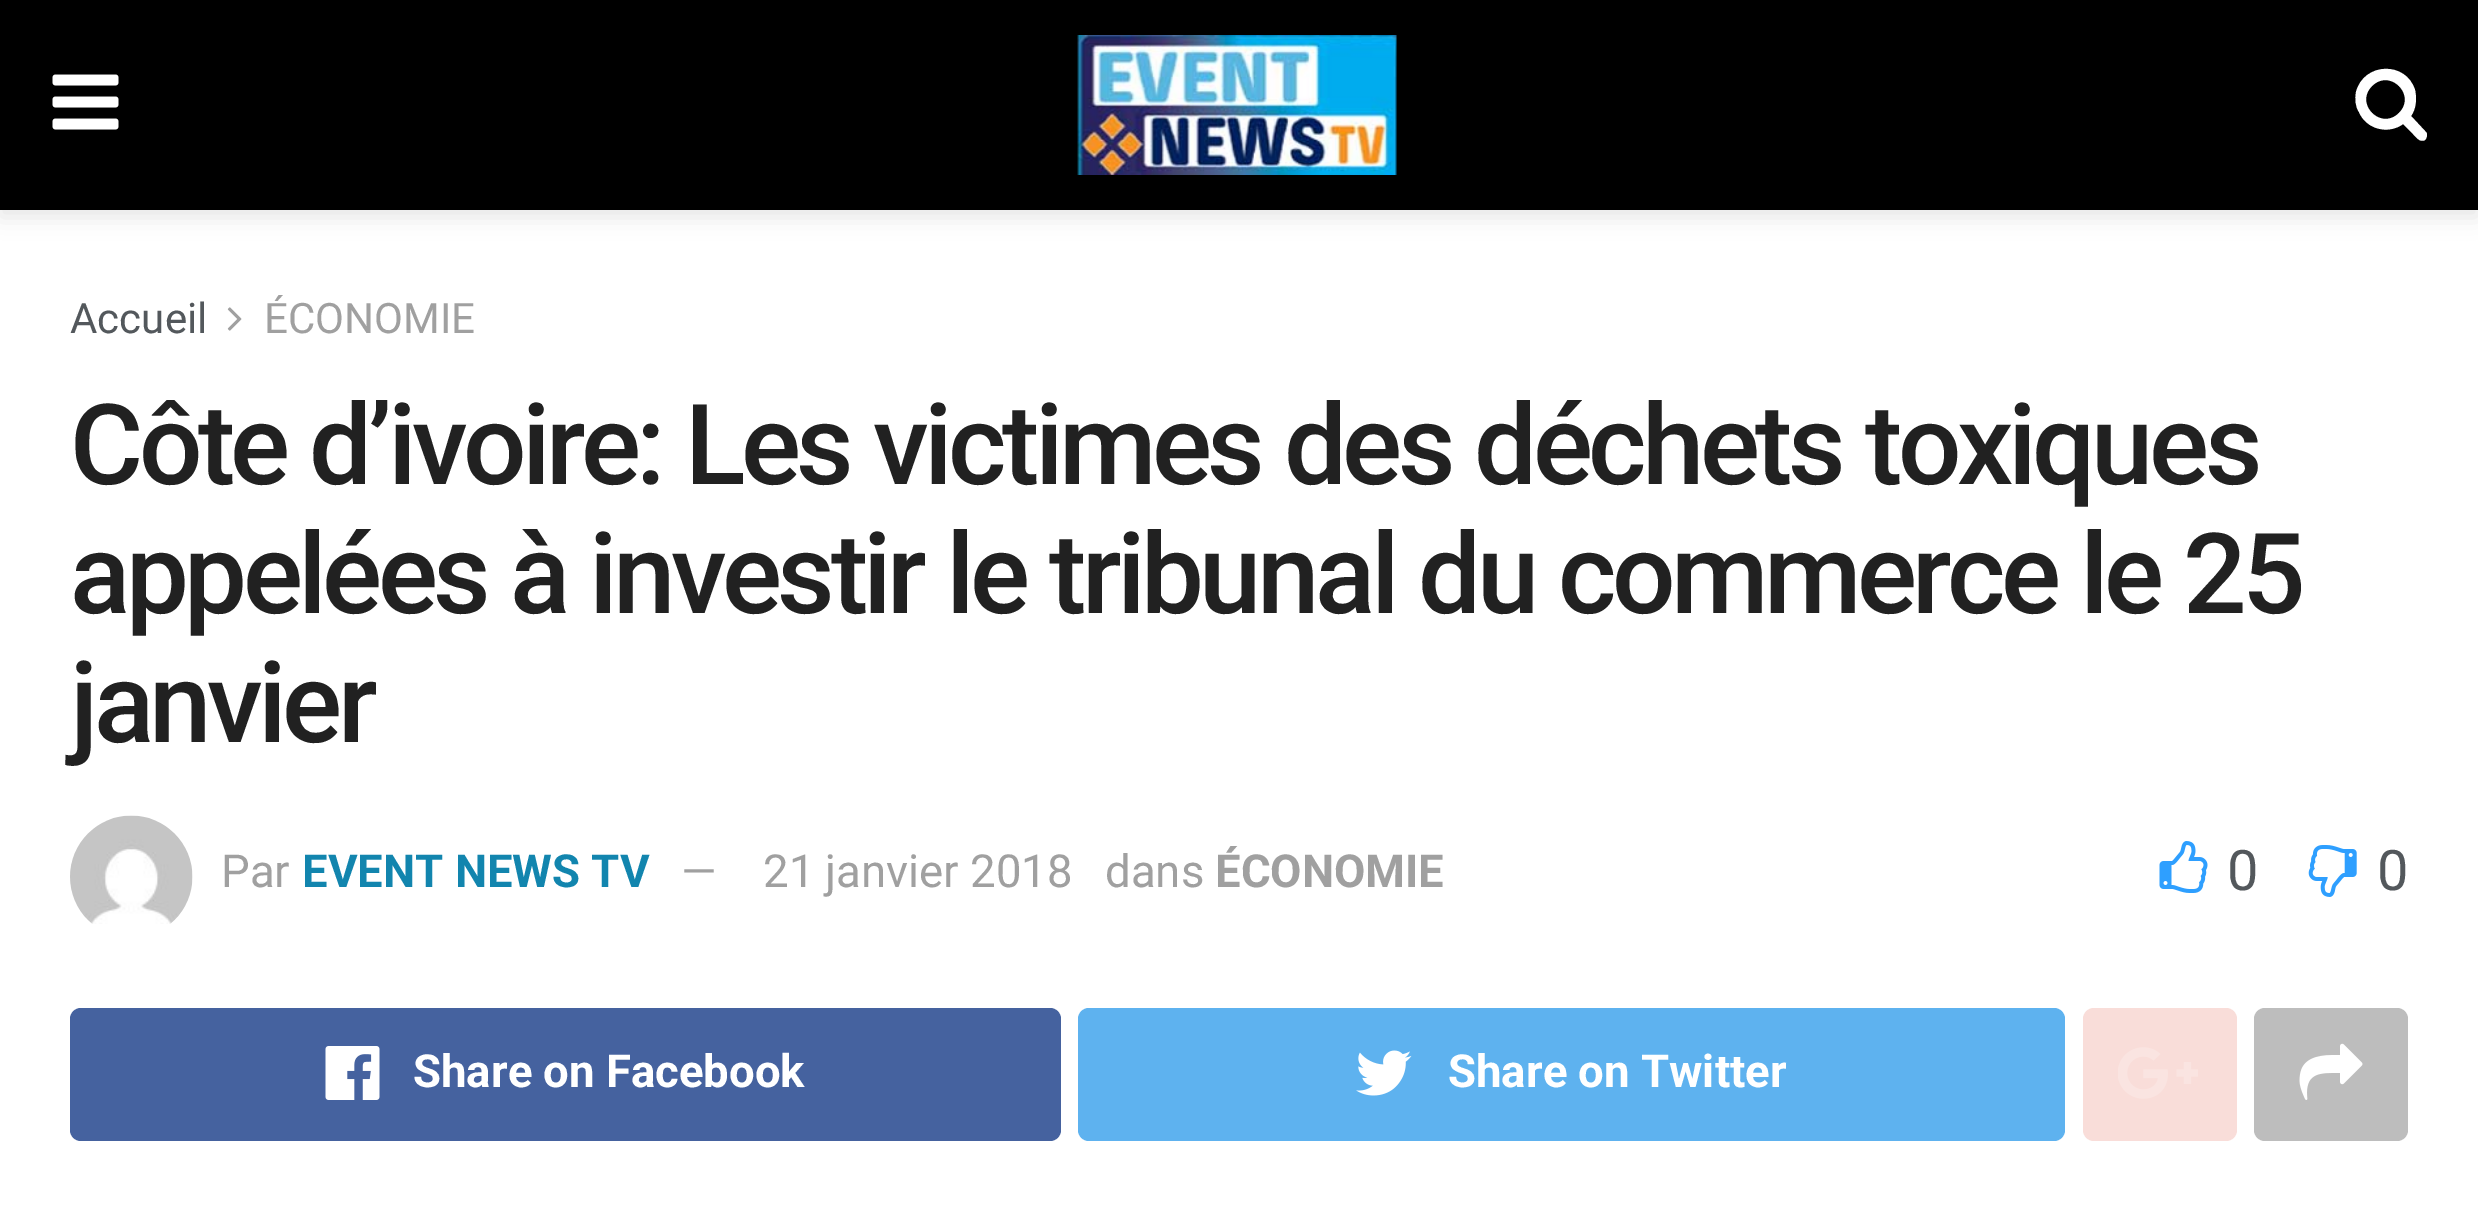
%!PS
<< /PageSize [2478 1226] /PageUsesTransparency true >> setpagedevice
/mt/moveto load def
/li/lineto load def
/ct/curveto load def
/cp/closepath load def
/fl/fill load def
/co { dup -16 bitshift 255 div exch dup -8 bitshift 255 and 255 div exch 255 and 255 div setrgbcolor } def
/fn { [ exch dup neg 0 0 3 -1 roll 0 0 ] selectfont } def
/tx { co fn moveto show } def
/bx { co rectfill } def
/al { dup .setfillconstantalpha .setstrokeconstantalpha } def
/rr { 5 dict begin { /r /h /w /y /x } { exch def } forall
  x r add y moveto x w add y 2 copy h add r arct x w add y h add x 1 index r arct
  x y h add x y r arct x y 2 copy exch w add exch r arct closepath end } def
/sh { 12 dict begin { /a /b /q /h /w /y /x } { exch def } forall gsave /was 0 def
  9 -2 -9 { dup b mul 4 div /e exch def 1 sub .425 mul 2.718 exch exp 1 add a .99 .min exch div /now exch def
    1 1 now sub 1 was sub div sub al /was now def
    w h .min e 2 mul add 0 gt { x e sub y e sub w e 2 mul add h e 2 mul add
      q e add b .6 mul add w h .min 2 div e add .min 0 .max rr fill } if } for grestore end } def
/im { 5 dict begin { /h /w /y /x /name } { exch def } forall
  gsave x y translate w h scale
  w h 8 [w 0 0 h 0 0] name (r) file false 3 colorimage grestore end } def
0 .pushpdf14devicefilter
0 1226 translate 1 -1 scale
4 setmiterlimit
0 0 2478 1226 16#FFFFFF bx
16#000000 co
0 7 2478 210 0 10.5 .1 sh
0 0 2478 210 16#000000 bx
(media/1.raw) 52 74 67 56 im
(media/2.raw) 1077 35 320 140 im
16#FFFFFF co
2399 113 mt 2417 95 2390 68 2372 86 ct 2354 104 2381 131 2399 113 ct cp 2427 135 mt 2427 137 2426 139 2425 140 ct 2420 143 2416 137 2413 134 ct 2403 124 li 2388 135 2366 129 2359 112 ct 2355 106 2355 99 2356 92 ct 2364 62 2406 61 2415 90 ct 2417 99 2416 109 2411 116 ct 2425 131 li 2426 132 2427 133 2427 135 ct cp fl
(media/3.raw) 227 307 15 24 im
(media/4.raw) 70 815 123 109 im
(media/5.raw) 2159 841 49 52 im
(media/6.raw) 2308 845 49 52 im
16#45629F co
70 1008 991 133 11 rr fl
(media/7.raw) 325 1046 55 54 im
16#5EB2EF co
1078 1008 987 133 11 rr fl
(media/8.raw) 1356 1050 56 46 im
16#F9DDD9 co
2083 1008 154 133 11 rr fl
(media/9.raw) 2118 1047 80 52 im
16#BDBDBD co
2254 1008 154 133 11 rr fl
(media/10.raw) 2299 1043 64 57 im
(Accueil) 70 333 /Roboto-Regular 42 16#53585C tx
(ÉCONOMIE) 264 333 /Roboto-Regular 42 16#A0A0A0 tx
/Roboto-Medium 112 fn
16#212121 co
70 484 mt -4.5 0 (Côte d’ivoire: Les victimes des déchets toxiques) ashow
70 613 mt -4.5 0 (appelées à investir le tribunal du commerce le 25) ashow
70 742 mt -4.5 0 (janvier) ashow
(Par) 221 887 /Roboto-Regular 45.5 16#A0A0A0 tx
(EVENT NEWS TV) 302 887 /Roboto-Bold 45.5 16#1285AE tx
(—) 681 887 /Roboto-Regular 45.5 16#A0A0A0 tx
(21 janvier 2018) 763 887 /Roboto-Regular 45.5 16#A0A0A0 tx
(dans) 1105 887 /Roboto-Regular 45.5 16#A0A0A0 tx
(ÉCONOMIE) 1215 887 /Roboto-Bold 45.5 16#A0A0A0 tx
(0) 2227 890 /Roboto-Regular 56 16#53585C tx
(0) 2377 890 /Roboto-Regular 56 16#53585C tx
(Share on Facebook) 413 1087 /Roboto-Bold 45.5 16#FFFFFF tx
(Share on Twitter) 1448 1087 /Roboto-Bold 45.5 16#FFFFFF tx
.poppdf14devicefilter showpage
